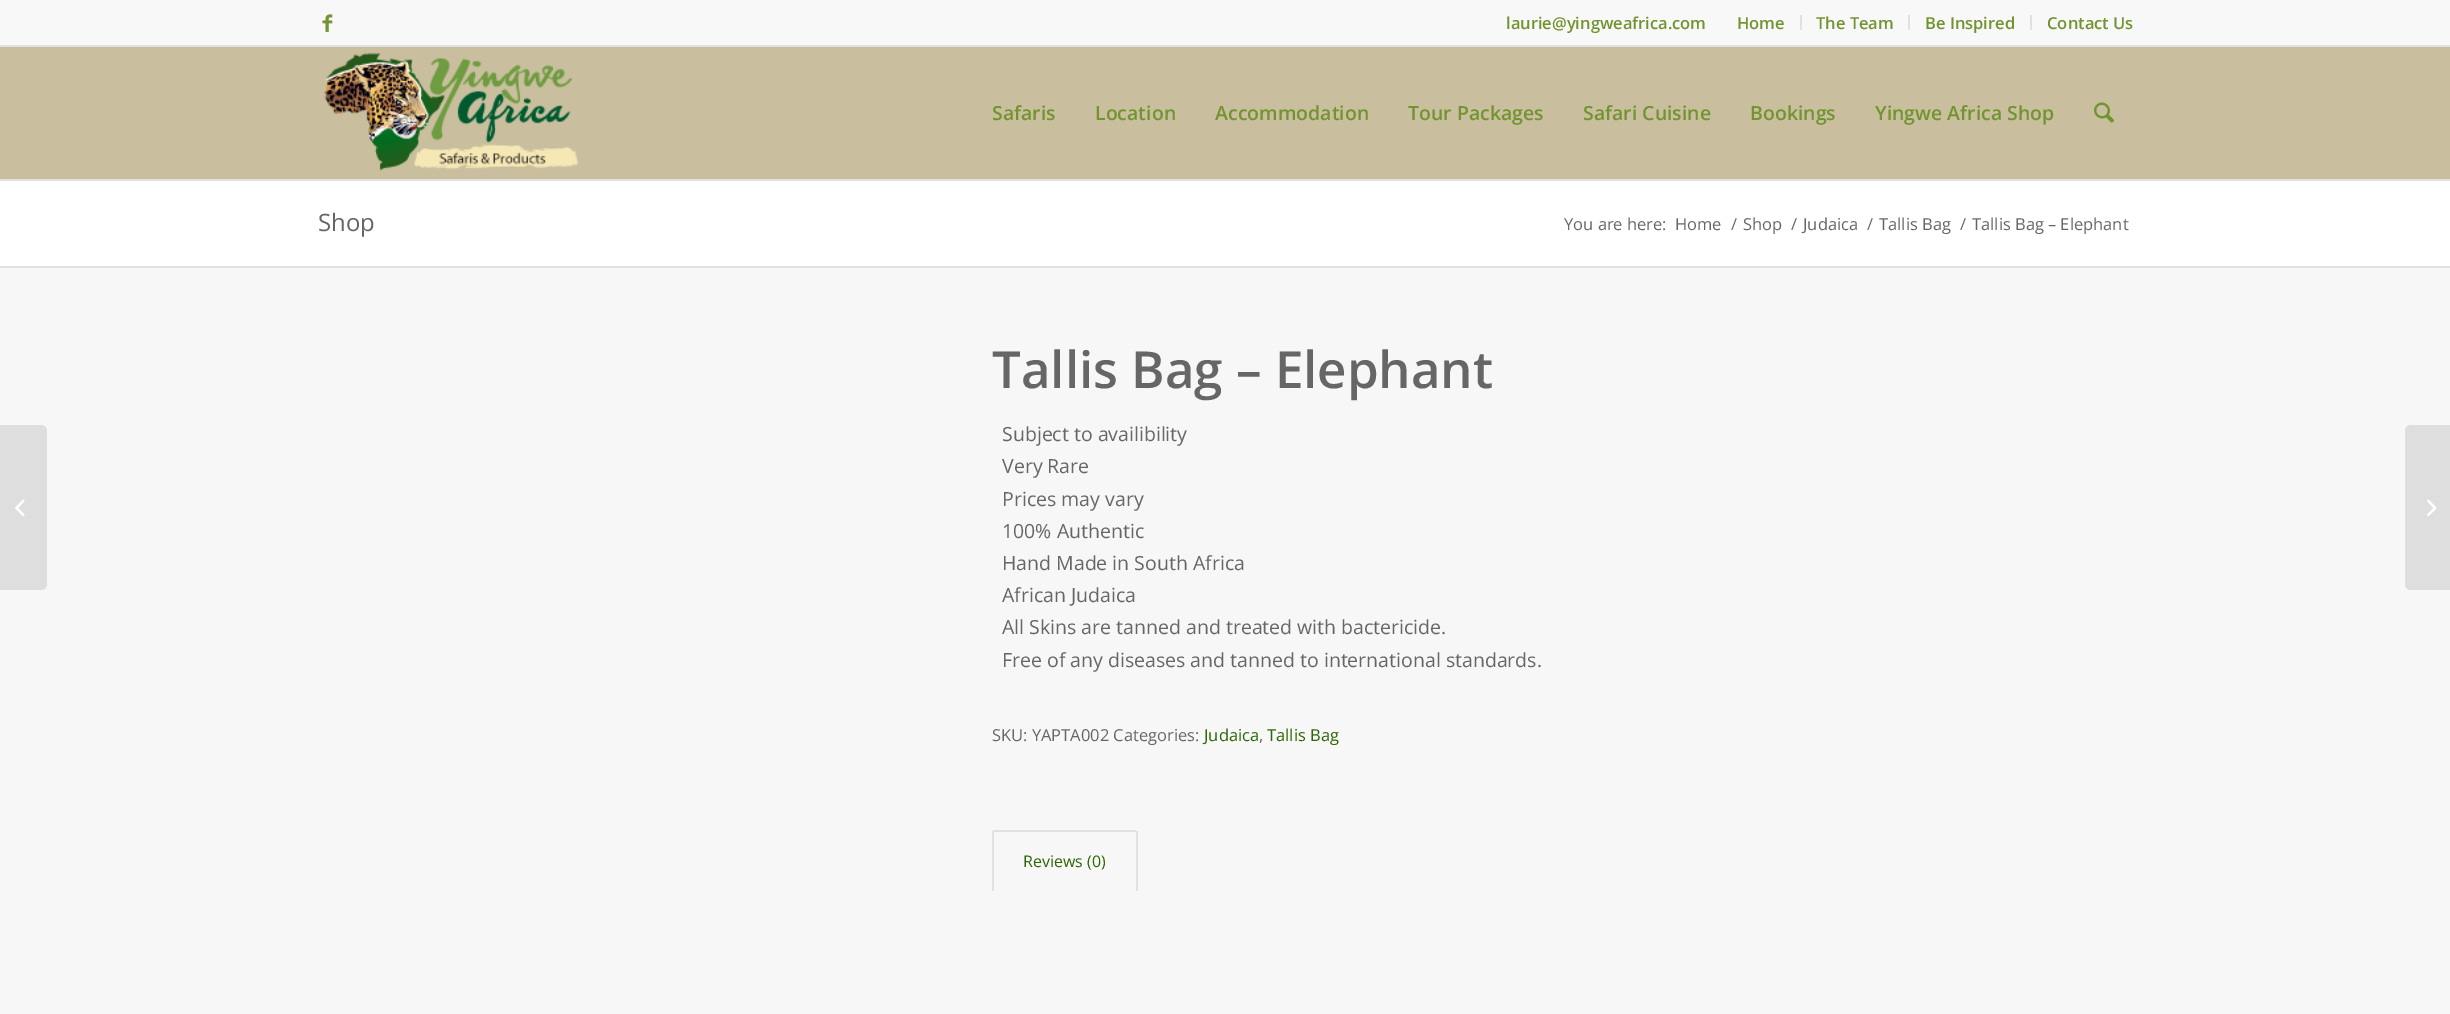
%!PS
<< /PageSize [2450 1014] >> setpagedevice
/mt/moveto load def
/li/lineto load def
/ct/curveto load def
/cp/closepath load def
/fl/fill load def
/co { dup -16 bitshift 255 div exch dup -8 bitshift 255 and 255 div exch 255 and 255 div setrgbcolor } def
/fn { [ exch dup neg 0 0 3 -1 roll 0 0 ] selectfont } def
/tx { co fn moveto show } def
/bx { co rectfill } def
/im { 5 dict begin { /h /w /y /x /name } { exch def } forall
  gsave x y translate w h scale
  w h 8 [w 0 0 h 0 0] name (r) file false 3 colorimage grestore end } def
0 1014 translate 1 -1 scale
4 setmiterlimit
0 0 2450 1014 16#FFFFFF bx
0 0 2450 45 16#F8F8F8 bx
0 45 2450 2 16#E1E1E1 bx
(media/1.raw) 322 14 11 18 im
1800 15 2 15 16#E1E1E1 bx
1908 15 2 15 16#E1E1E1 bx
2030 15 2 15 16#E1E1E1 bx
0 47 2450 132 16#C9BF9E bx
0 179 2450 2 16#E1E1E1 bx
(media/2.raw) 324 53 255 118 im
(media/3.raw) 2094 102 21 21 im
0 268 2450 746 16#F7F7F7 bx
16#DEDEDE co
0 425 mt 41 425 li 44.5 425 47 427.5 47 431 ct 47 584 li 47 587.5 44.5 590 41 590 ct 0 590 li cp fl
(media/4.raw) 15 499 10 17 im
0 266 2450 2 16#E1E1E1 bx
993 830 143 2 16#E1E1E1 bx
1136 831 2 60 16#E1E1E1 bx
992 831 2 60 16#E1E1E1 bx
16#DEDEDE co
2411 425 mt 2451 425 li 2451 590 li 2411 590 li 2407.5 590 2405 587.5 2405 584 ct 2405 431 li 2405 427.5 2407.5 425 2411 425 ct cp fl
(media/5.raw) 2427 499 10 18 im
(laurie@yingweafrica.com) 1506 29 /OpenSans-SemiBold 16.5 16#719430 tx
(Home) 1737 29 /OpenSans-SemiBold 16.5 16#719430 tx
(The Team) 1816 29 /OpenSans-SemiBold 16.5 16#719430 tx
(Be Inspired) 1925 29 /OpenSans-SemiBold 16.5 16#719430 tx
(Contact Us) 2047 29 /OpenSans-SemiBold 16.5 16#719430 tx
(Safaris) 992 120 /OpenSans-SemiBold 19.5 16#719430 tx
(Location) 1095 120 /OpenSans-SemiBold 19.5 16#719430 tx
(Accommodation) 1215 120 /OpenSans-SemiBold 19.5 16#719430 tx
(Tour Packages) 1408 120 /OpenSans-SemiBold 19.5 16#719430 tx
(Safari Cuisine) 1583 120 /OpenSans-SemiBold 19.5 16#719430 tx
(Bookings) 1750 120 /OpenSans-SemiBold 19.5 16#719430 tx
(Yingwe Africa Shop) 1875 120 /OpenSans-SemiBold 19.5 16#719430 tx
(Shop) 318 231 /OpenSans-Regular 24 16#666666 tx
(You are here:) 1564 230 /OpenSans-Regular 16.5 16#666666 tx
(Home) 1675 230 /OpenSans-Regular 16.5 16#666666 tx
(/) 1731 230 /OpenSans-Regular 16.5 16#666666 tx
(Shop) 1743 230 /OpenSans-Regular 16.5 16#666666 tx
(/) 1791 230 /OpenSans-Regular 16.5 16#666666 tx
(Judaica) 1803 230 /OpenSans-Regular 16.5 16#666666 tx
(/) 1867 230 /OpenSans-Regular 16.5 16#666666 tx
(Tallis Bag) 1879 230 /OpenSans-Regular 16.5 16#666666 tx
(/) 1960 230 /OpenSans-Regular 16.5 16#666666 tx
(Tallis Bag – Elephant) 1972 230 /OpenSans-Regular 16.5 16#666666 tx
(Tallis Bag – Elephant) 992 388 /OpenSans-SemiBold 51 16#666666 tx
(Subject to availibility) 1002 441 /OpenSans-Regular 19.5 16#666666 tx
(Very Rare) 1002 473 /OpenSans-Regular 19.5 16#666666 tx
(Prices may vary) 1002 506 /OpenSans-Regular 19.5 16#666666 tx
(100% Authentic) 1002 538 /OpenSans-Regular 19.5 16#666666 tx
(Hand Made in South Africa) 1002 570 /OpenSans-Regular 19.5 16#666666 tx
(African Judaica) 1002 602 /OpenSans-Regular 19.5 16#666666 tx
(All Skins are tanned and treated with bactericide.) 1002 634 /OpenSans-Regular 19.5 16#666666 tx
(Free of any diseases and tanned to international standards.) 1002 667 /OpenSans-Regular 19.5 16#666666 tx
(SKU: YAPTA002 Categories:) 992 741 /OpenSans-Regular 16.5 16#666666 tx
(Judaica) 1204 741 /OpenSans-Regular 16.5 16#2D6604 tx
(,) 1259 741 /OpenSans-Regular 16.5 16#666666 tx
(Tallis Bag) 1267 741 /OpenSans-Regular 16.5 16#2D6604 tx
(Reviews \(0\)) 1023 867 /OpenSans-Regular 16 16#2D6604 tx
showpage
